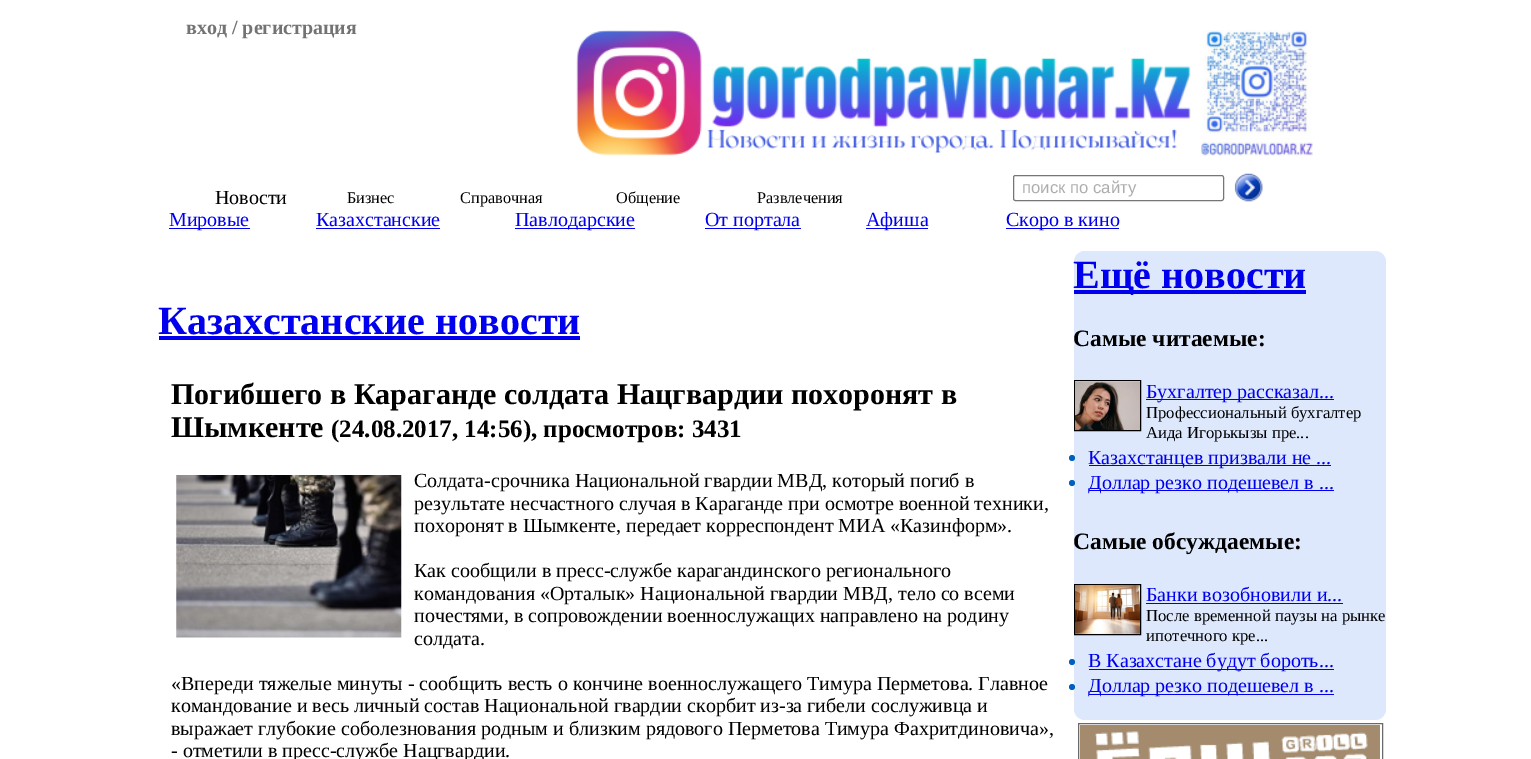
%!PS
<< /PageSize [1531 759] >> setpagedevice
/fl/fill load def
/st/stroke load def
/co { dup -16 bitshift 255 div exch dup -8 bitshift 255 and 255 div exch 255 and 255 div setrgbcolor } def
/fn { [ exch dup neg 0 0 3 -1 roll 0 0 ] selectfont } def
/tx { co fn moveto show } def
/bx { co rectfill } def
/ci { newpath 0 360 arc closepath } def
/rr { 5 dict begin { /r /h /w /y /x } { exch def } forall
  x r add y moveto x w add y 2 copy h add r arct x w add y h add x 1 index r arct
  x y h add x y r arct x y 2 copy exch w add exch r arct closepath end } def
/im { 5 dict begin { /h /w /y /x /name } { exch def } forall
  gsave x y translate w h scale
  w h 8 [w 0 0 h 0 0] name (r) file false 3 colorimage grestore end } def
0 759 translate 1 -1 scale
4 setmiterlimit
0 0 1531 759 16#FFFFFF bx
(media/1.raw) 576 30 737 126 im
16#767676 co
1013.5 175.5 210 25 2 rr st
(media/2.raw) 1234 173 29 29 im
169 228 81 1 16#0000EE bx
316 228 124 1 16#0000EE bx
515 228 120 1 16#0000EE bx
705 228 96 1 16#0000EE bx
866 228 62 1 16#0000EE bx
1006 228 113 1 16#0000EE bx
159 336 421 4 16#0000EE bx
(media/3.raw) 176 475 226 163 im
16#DDE8FC co
1074 251 312 469 11 rr fl
1074 290 232 4 16#0000EE bx
16#000000 co
1074.5 380.5 66 50 rectstroke
(media/4.raw) 1075 381 65 49 im
1146 399 188 1 16#0000EE bx
16#0060BF co
1072 458 3 ci fl
1089 465 242 1 16#0000EE bx
16#0060BF co
1072 483 3 ci fl
1089 490 245 1 16#0000EE bx
16#000000 co
1074.5 584.5 66 50 rectstroke
(media/5.raw) 1075 585 65 49 im
1146 603 197 1 16#0000EE bx
16#0060BF co
1072 662 3 ci fl
1089 669 245 1 16#0000EE bx
16#0060BF co
1072 687 3 ci fl
1089 694 245 1 16#0000EE bx
16#696969 co
1078.5 723.5 304 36 rectstroke
(media/6.raw) 1080 725 300 34 im
(вход / регистрация) 186 34 /LiberationSerif-Bold 20 16#737373 tx
(Новости) 215 204 /LiberationSerif-Regular 20 16#000000 tx
(Бизнес) 347 203 /LiberationSerif-Regular 16.25 16#000000 tx
(Справочная) 460 203 /LiberationSerif-Regular 16.25 16#000000 tx
(Общение) 616 203 /LiberationSerif-Regular 16.25 16#000000 tx
(Развлечения) 757 203 /LiberationSerif-Regular 16.25 16#000000 tx
(поиск по сайту) 1022 193 /LiberationSans-Regular 16.7 16#ADADAD tx
(Мировые) 169 226 /LiberationSerif-Regular 20 16#0000EE tx
(Казахстанские) 316 226 /LiberationSerif-Regular 20 16#0000EE tx
(Павлодарские) 515 226 /LiberationSerif-Regular 20 16#0000EE tx
(От портала) 705 226 /LiberationSerif-Regular 20 16#0000EE tx
(Афиша) 866 226 /LiberationSerif-Regular 20 16#0000EE tx
(Скоро в кино) 1006 226 /LiberationSerif-Regular 20 16#0000EE tx
(Казахстанские новости) 158 334 /LiberationSerif-Bold 40 16#0000EE tx
(Погибшего в Караганде солдата Нацгвардии похоронят в) 171 404 /LiberationSerif-Bold 30 16#000000 tx
(Шымкенте) 171 437 /LiberationSerif-Bold 30 16#000000 tx
(\(24.08.2017, 14:56\), просмотров: 3431) 331 437 /LiberationSerif-Bold 25 16#000000 tx
(Солдата-срочника Национальной гвардии МВД, который погиб в) 414 487 /LiberationSerif-Regular 20 16#000000 tx
(результате несчастного случая в Караганде при осмотре военной техники,) 414 510 /LiberationSerif-Regular 20 16#000000 tx
(похоронят в Шымкенте, передает корреспондент МИА «Казинформ».) 414 532 /LiberationSerif-Regular 20 16#000000 tx
(Как сообщили в пресс-службе карагандинского регионального) 414 577 /LiberationSerif-Regular 20 16#000000 tx
(командования «Орталык» Национальной гвардии МВД, тело со всеми) 414 600 /LiberationSerif-Regular 20 16#000000 tx
(почестями, в сопровождении военнослужащих направлено на родину) 414 622 /LiberationSerif-Regular 20 16#000000 tx
(солдата.) 414 645 /LiberationSerif-Regular 20 16#000000 tx
(«Впереди тяжелые минуты - сообщить весть о кончине военнослужащего Тимура Перметова. Главное) 171 690 /LiberationSerif-Regular 20 16#000000 tx
(командование и весь личный состав Национальной гвардии скорбит из-за гибели сослуживца и) 171 712 /LiberationSerif-Regular 20 16#000000 tx
(выражает глубокие соболезнования родным и близким рядового Перметова Тимура Фахритдиновича»,) 171 735 /LiberationSerif-Regular 20 16#000000 tx
(- отметили в пресс-службе Нацгвардии.) 171 757 /LiberationSerif-Regular 20 16#000000 tx
(Ещё новости) 1073 288 /LiberationSerif-Bold 40 16#0000EE tx
(Самые читаемые:) 1073 346 /LiberationSerif-Bold 23.5 16#000000 tx
(Бухгалтер рассказал...) 1146 398 /LiberationSerif-Regular 20 16#0000EE tx
(Профессиональный бухгалтер) 1146 418 /LiberationSerif-Regular 16.7 16#000000 tx
(Аида Игорькызы пре...) 1146 438 /LiberationSerif-Regular 16.7 16#000000 tx
(Казахстанцев призвали не ...) 1088 464 /LiberationSerif-Regular 20 16#0000EE tx
(Доллар резко подешевел в ...) 1088 489 /LiberationSerif-Regular 20 16#0000EE tx
(Самые обсуждаемые:) 1073 549 /LiberationSerif-Bold 23.5 16#000000 tx
(Банки возобновили и...) 1146 601 /LiberationSerif-Regular 20 16#0000EE tx
(После временной паузы на рынке) 1146 621 /LiberationSerif-Regular 16.7 16#000000 tx
(ипотечного кре...) 1146 641 /LiberationSerif-Regular 16.7 16#000000 tx
(В Казахстане будут бороть...) 1088 667 /LiberationSerif-Regular 20 16#0000EE tx
(Доллар резко подешевел в ...) 1088 692 /LiberationSerif-Regular 20 16#0000EE tx
showpage
